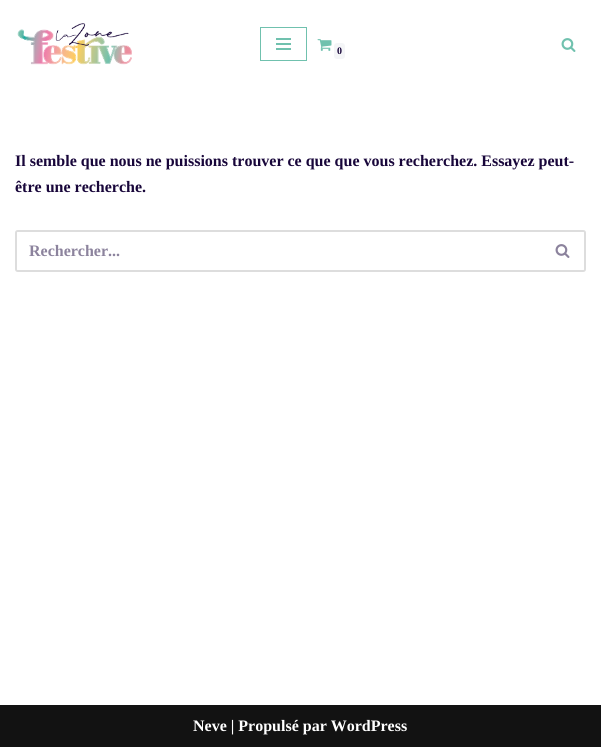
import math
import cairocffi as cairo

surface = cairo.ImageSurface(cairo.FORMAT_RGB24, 601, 747)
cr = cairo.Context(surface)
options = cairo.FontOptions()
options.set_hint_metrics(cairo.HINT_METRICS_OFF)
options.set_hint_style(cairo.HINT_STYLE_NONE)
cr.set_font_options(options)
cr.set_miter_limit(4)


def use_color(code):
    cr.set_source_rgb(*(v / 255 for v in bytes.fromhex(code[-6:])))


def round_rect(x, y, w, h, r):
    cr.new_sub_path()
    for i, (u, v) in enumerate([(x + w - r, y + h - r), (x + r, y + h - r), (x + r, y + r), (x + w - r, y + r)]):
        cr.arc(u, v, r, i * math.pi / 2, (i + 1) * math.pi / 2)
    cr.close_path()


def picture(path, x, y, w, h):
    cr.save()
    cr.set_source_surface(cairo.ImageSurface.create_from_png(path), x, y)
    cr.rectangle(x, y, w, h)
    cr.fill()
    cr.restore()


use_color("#ffffff")
cr.paint()
picture("img1.png", 17, 23, 115, 42)
cr.rectangle(260.5, 27.5, 46, 33)
use_color("#70c1ae")
cr.set_line_width(1)
cr.stroke()
cr.rectangle(276, 38, 15, 2)
cr.fill()
cr.rectangle(276, 43, 15, 2)
cr.fill()
cr.rectangle(276, 48, 15, 2)
cr.fill()
picture("img2.png", 317, 39, 15, 12)
use_color("#f4f5f7")
round_rect(334, 43, 11, 16, 3)
cr.fill()
cr.select_font_face("Liberation Serif", cairo.FONT_SLANT_NORMAL, cairo.FONT_WEIGHT_BOLD)
cr.set_font_size(10)
use_color("#18063a")
cr.move_to(337, 54)
cr.show_text("0")
picture("img3.png", 561, 38, 15, 14)
cr.set_font_size(16)
cr.move_to(15, 166)
cr.show_text("Il semble que nous ne puissions trouver ce que que vous recherchez. Essayez peut-")
cr.move_to(15, 192)
cr.show_text("être une recherche.")
use_color("#dddddd")
cr.set_fill_rule(cairo.FILL_RULE_EVEN_ODD)
cr.new_path()
cr.move_to(18, 230)
cr.line_to(541, 230)
cr.line_to(541, 272)
cr.line_to(18, 272)
cr.curve_to(16, 272, 15, 271, 15, 269)
cr.line_to(15, 233)
cr.curve_to(15, 231, 16, 230, 18, 230)
cr.close_path()
cr.move_to(18, 232)
cr.line_to(541, 232)
cr.line_to(541, 270)
cr.line_to(18, 270)
cr.curve_to(17, 270, 17, 270, 17, 269)
cr.line_to(17, 233)
cr.curve_to(17, 232, 17, 232, 18, 232)
cr.close_path()
cr.fill()
use_color("#8c839d")
cr.move_to(29, 256)
cr.show_text("Rechercher...")
use_color("#dddddd")
cr.new_path()
cr.move_to(541, 230)
cr.line_to(583, 230)
cr.curve_to(585, 230, 586, 231, 586, 233)
cr.line_to(586, 269)
cr.curve_to(586, 271, 585, 272, 583, 272)
cr.line_to(541, 272)
cr.close_path()
cr.move_to(541, 232)
cr.line_to(583, 232)
cr.curve_to(584, 232, 584, 232, 584, 233)
cr.line_to(584, 269)
cr.curve_to(584, 270, 584, 270, 583, 270)
cr.line_to(541, 270)
cr.close_path()
cr.fill()
picture("img4.png", 555, 244, 15, 14)
use_color("#121212")
cr.rectangle(0, 705, 601, 42)
cr.fill()
use_color("#ffffff")
cr.move_to(193, 731)
cr.show_text("Neve | Propulsé par WordPress")
surface.write_to_png("result.png")
